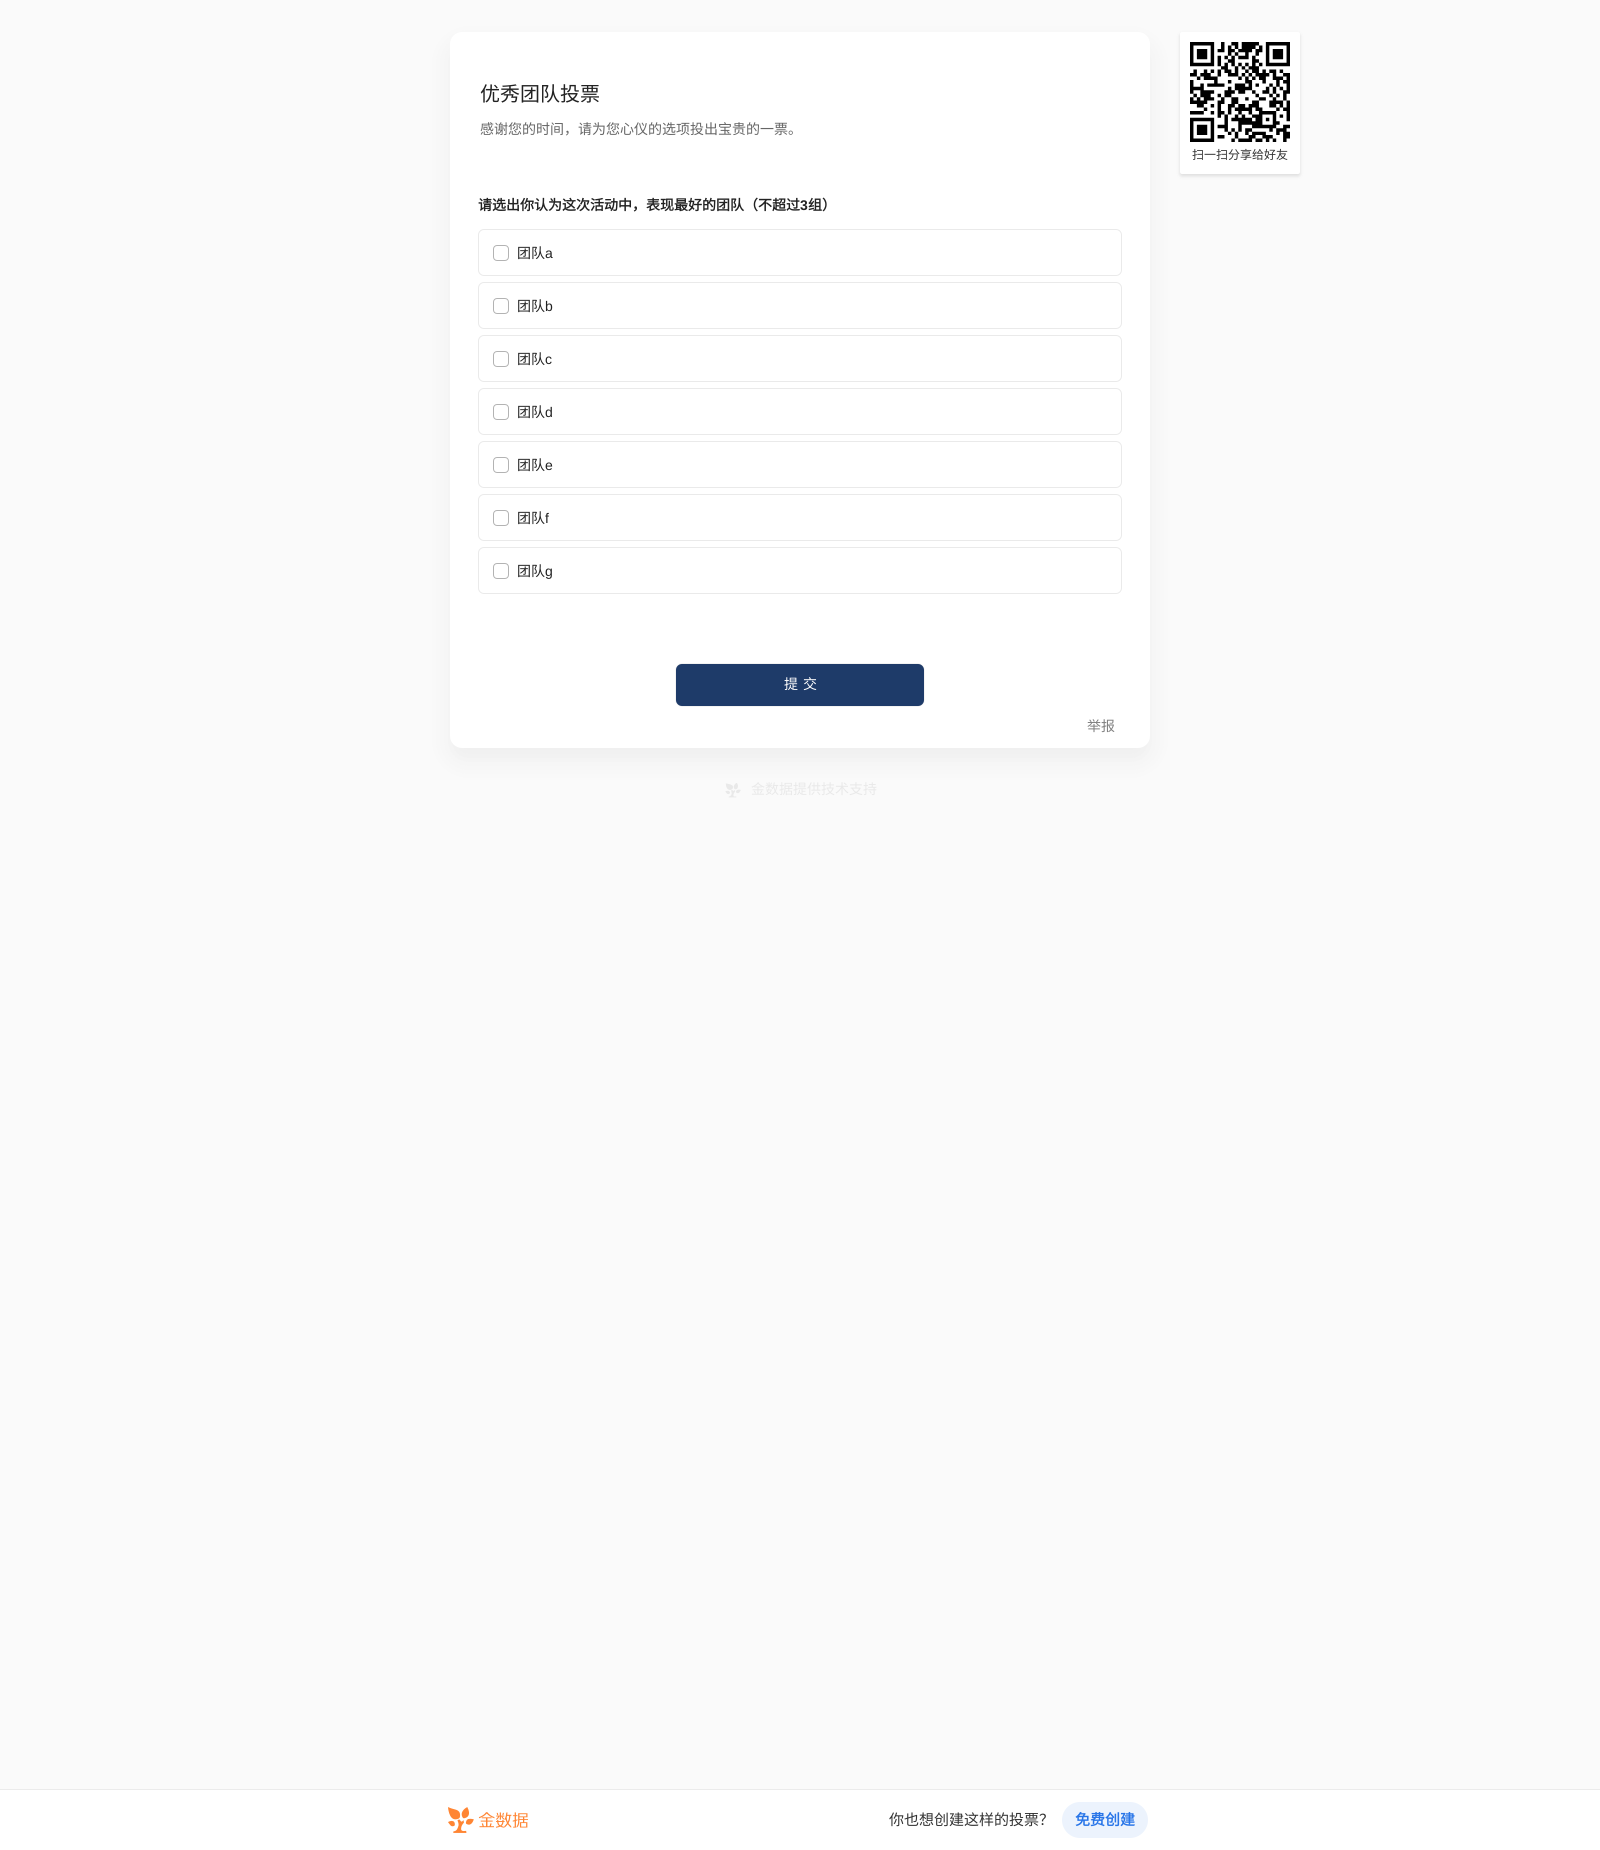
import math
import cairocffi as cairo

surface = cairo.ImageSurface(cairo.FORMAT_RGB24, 1600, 1850)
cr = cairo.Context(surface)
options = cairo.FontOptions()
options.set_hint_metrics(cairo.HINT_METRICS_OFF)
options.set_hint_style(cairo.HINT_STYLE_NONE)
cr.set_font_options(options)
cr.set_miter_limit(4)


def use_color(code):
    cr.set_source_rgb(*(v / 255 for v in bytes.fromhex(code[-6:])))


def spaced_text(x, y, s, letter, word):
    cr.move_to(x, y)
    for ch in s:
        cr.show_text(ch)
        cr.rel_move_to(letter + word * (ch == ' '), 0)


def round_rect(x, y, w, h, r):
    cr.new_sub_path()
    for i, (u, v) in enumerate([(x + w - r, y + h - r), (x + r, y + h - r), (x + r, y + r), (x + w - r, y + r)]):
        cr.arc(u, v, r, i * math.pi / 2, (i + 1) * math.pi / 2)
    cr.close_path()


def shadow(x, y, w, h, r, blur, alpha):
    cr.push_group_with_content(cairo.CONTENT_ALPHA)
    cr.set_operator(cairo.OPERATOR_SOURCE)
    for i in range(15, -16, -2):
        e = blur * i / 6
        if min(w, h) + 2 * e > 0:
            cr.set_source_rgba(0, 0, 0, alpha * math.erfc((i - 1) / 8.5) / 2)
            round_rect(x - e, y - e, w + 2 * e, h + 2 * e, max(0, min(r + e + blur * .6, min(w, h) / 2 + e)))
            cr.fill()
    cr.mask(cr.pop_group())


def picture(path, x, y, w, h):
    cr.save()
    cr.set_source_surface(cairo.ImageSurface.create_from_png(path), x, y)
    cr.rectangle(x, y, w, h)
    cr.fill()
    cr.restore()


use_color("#fafafa")
cr.paint()
use_color("#000000")
shadow(450, 44, 700, 716, 12, 12, 0.05)
use_color("#ffffff")
round_rect(450, 32, 700, 716, 12)
cr.fill()
cr.select_font_face("Noto Sans CJK SC")
cr.set_font_size(20)
use_color("#222222")
cr.move_to(480, 101)
cr.show_text("优秀团队投票")
cr.set_font_size(14)
use_color("#666666")
cr.move_to(480, 134)
cr.show_text("感谢您的时间，请为您心仪的选项投出宝贵的一票。")
use_color("#000000")
shadow(1180, 34, 120, 142, 2, 2, 0.12)
use_color("#ffffff")
round_rect(1180, 32, 120, 142, 2)
cr.fill()
picture("img1.png", 1190, 42, 100, 100)
cr.set_font_size(12)
use_color("#333333")
cr.move_to(1192, 159)
cr.show_text("扫一扫分享给好友")
cr.select_font_face("Noto Sans CJK SC", cairo.FONT_SLANT_NORMAL, cairo.FONT_WEIGHT_BOLD)
cr.set_font_size(14)
use_color("#222222")
cr.move_to(478, 210)
cr.show_text("请选出你认为这次活动中，表现最好的团队（不超过")
cr.select_font_face("Liberation Sans", cairo.FONT_SLANT_NORMAL, cairo.FONT_WEIGHT_BOLD)
cr.move_to(800, 210)
cr.show_text("3")
cr.select_font_face("Noto Sans CJK SC", cairo.FONT_SLANT_NORMAL, cairo.FONT_WEIGHT_BOLD)
cr.move_to(808, 210)
cr.show_text("组）")
round_rect(478.5, 229.5, 643, 46, 5.5)
use_color("#eaeaea")
cr.set_line_width(1)
cr.stroke()
round_rect(493.5, 245.5, 15, 15, 3.5)
use_color("#b3b3b3")
cr.stroke()
cr.select_font_face("Noto Sans CJK SC")
use_color("#222222")
cr.move_to(517, 258)
cr.show_text("团队")
cr.select_font_face("Liberation Sans")
cr.move_to(545, 258)
cr.show_text("a")
round_rect(478.5, 282.5, 643, 46, 5.5)
use_color("#eaeaea")
cr.stroke()
round_rect(493.5, 298.5, 15, 15, 3.5)
use_color("#b3b3b3")
cr.stroke()
cr.select_font_face("Noto Sans CJK SC")
use_color("#222222")
cr.move_to(517, 311)
cr.show_text("团队")
cr.select_font_face("Liberation Sans")
cr.move_to(545, 311)
cr.show_text("b")
round_rect(478.5, 335.5, 643, 46, 5.5)
use_color("#eaeaea")
cr.stroke()
round_rect(493.5, 351.5, 15, 15, 3.5)
use_color("#b3b3b3")
cr.stroke()
cr.select_font_face("Noto Sans CJK SC")
use_color("#222222")
cr.move_to(517, 364)
cr.show_text("团队")
cr.select_font_face("Liberation Sans")
cr.move_to(545, 364)
cr.show_text("c")
round_rect(478.5, 388.5, 643, 46, 5.5)
use_color("#eaeaea")
cr.stroke()
round_rect(493.5, 404.5, 15, 15, 3.5)
use_color("#b3b3b3")
cr.stroke()
cr.select_font_face("Noto Sans CJK SC")
use_color("#222222")
cr.move_to(517, 417)
cr.show_text("团队")
cr.select_font_face("Liberation Sans")
cr.move_to(545, 417)
cr.show_text("d")
round_rect(478.5, 441.5, 643, 46, 5.5)
use_color("#eaeaea")
cr.stroke()
round_rect(493.5, 457.5, 15, 15, 3.5)
use_color("#b3b3b3")
cr.stroke()
cr.select_font_face("Noto Sans CJK SC")
use_color("#222222")
cr.move_to(517, 470)
cr.show_text("团队")
cr.select_font_face("Liberation Sans")
cr.move_to(545, 470)
cr.show_text("e")
round_rect(478.5, 494.5, 643, 46, 5.5)
use_color("#eaeaea")
cr.stroke()
round_rect(493.5, 510.5, 15, 15, 3.5)
use_color("#b3b3b3")
cr.stroke()
cr.select_font_face("Noto Sans CJK SC")
use_color("#222222")
cr.move_to(517, 523)
cr.show_text("团队")
cr.select_font_face("Liberation Sans")
cr.move_to(545, 523)
cr.show_text("f")
round_rect(478.5, 547.5, 643, 46, 5.5)
use_color("#eaeaea")
cr.stroke()
round_rect(493.5, 563.5, 15, 15, 3.5)
use_color("#b3b3b3")
cr.stroke()
cr.select_font_face("Noto Sans CJK SC")
use_color("#222222")
cr.move_to(517, 576)
cr.show_text("团队")
cr.select_font_face("Liberation Sans")
cr.move_to(545, 576)
cr.show_text("g")
use_color("#000000")
shadow(676, 664, 248, 42, 6, 0.5, 0.2)
use_color("#1e3b69")
round_rect(676, 664, 248, 42, 6)
cr.fill()
cr.select_font_face("Noto Sans CJK SC")
use_color("#ffffff")
spaced_text(784, 689, "提交", 5, 0)
use_color("#808080")
cr.move_to(1087, 731)
cr.show_text("举报")
picture("img2.png", 725, 783, 16, 15)
use_color("#e9e9e9")
cr.move_to(751, 794)
cr.show_text("金数据提供技术支持")
use_color("#ffffff")
cr.rectangle(0, 1790, 1600, 60)
cr.fill()
use_color("#ebebeb")
cr.rectangle(0, 1789, 1600, 1)
cr.fill()
picture("img3.png", 448, 1807, 80, 26)
cr.set_font_size(15)
use_color("#333333")
cr.move_to(889, 1825)
cr.show_text("你也想创建这样的投票？")
use_color("#ecf3fd")
round_rect(1062, 1802, 86, 36, 18)
cr.fill()
cr.select_font_face("Noto Sans CJK SC", cairo.FONT_SLANT_NORMAL, cairo.FONT_WEIGHT_BOLD)
use_color("#2875e8")
cr.move_to(1075, 1825)
cr.show_text("免费创建")
surface.write_to_png("result.png")
